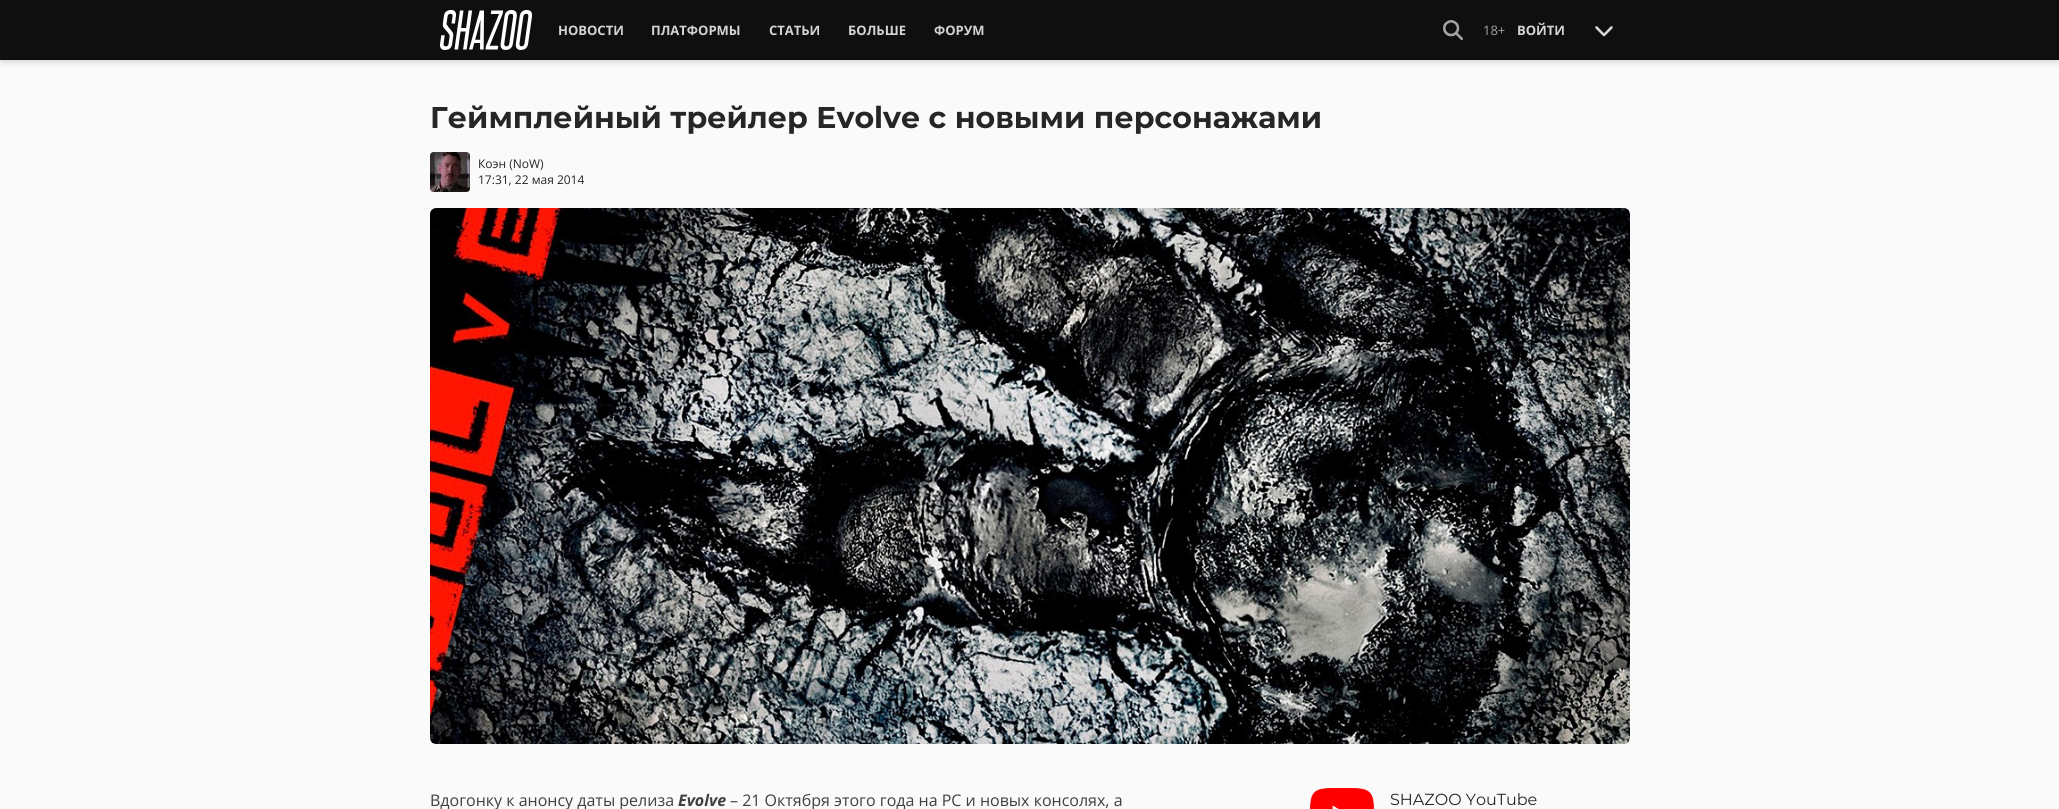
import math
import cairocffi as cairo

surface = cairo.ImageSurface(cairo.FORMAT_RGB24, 2059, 809)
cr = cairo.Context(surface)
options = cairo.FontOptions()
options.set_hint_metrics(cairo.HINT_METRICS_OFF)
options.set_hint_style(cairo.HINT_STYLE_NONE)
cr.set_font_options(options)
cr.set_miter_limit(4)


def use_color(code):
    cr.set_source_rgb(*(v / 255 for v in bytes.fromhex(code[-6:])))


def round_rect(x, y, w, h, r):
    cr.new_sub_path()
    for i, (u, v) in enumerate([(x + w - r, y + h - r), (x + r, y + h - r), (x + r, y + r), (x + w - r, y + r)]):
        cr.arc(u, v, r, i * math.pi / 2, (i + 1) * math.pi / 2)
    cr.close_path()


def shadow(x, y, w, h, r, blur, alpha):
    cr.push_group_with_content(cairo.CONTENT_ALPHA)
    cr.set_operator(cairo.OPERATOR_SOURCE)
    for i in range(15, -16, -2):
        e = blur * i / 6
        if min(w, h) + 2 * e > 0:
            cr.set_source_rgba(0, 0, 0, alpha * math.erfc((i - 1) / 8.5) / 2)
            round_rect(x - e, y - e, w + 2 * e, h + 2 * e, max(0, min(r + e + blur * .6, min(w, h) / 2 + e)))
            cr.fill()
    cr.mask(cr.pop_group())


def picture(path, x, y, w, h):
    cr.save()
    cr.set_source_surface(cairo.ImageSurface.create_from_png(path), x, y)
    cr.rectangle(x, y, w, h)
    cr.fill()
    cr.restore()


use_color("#fafafa")
cr.paint()
use_color("#000000")
shadow(2, 4, 2055, 56, 0, 2, 0.1)
shadow(1, 5, 2057, 58, 0, 3, 0.1)
use_color("#0f0f0f")
cr.rectangle(0, 0, 2059, 60)
cr.fill()
picture("img1.png", 440, 10, 92, 40)
cr.select_font_face("Open Sans", cairo.FONT_SLANT_NORMAL, cairo.FONT_WEIGHT_BOLD)
cr.set_font_size(13)
use_color("#d4d4d4")
cr.move_to(558, 35)
cr.show_text("НОВОСТИ")
cr.move_to(651, 35)
cr.show_text("ПЛАТФОРМЫ")
cr.move_to(769, 35)
cr.show_text("СТАТЬИ")
cr.move_to(848, 35)
cr.show_text("БОЛЬШЕ")
cr.move_to(934, 35)
cr.show_text("ФОРУМ")
picture("img2.png", 1443, 20, 20, 20)
cr.select_font_face("Open Sans")
use_color("#a3a3a3")
cr.move_to(1483, 35)
cr.show_text("18+")
cr.select_font_face("Open Sans", cairo.FONT_SLANT_NORMAL, cairo.FONT_WEIGHT_BOLD)
use_color("#d4d4d4")
cr.move_to(1517, 35)
cr.show_text("ВОЙТИ")
picture("img3.png", 1595, 26, 18, 11)
cr.select_font_face("Montserrat", cairo.FONT_SLANT_NORMAL, cairo.FONT_WEIGHT_BOLD)
cr.set_font_size(30)
use_color("#262626")
cr.move_to(430, 128)
cr.show_text("Геймплейный трейлер Evolve с новыми персонажами")
picture("img4.png", 430, 152, 40, 40)
cr.select_font_face("Open Sans")
cr.set_font_size(12)
cr.move_to(478, 168)
cr.show_text("Коэн (NoW)")
cr.move_to(478, 184)
cr.show_text("17:31, 22 мая 2014")
picture("img5.png", 430, 208, 1200, 536)
cr.set_font_size(16)
use_color("#404040")
cr.move_to(430, 806)
cr.show_text("Вдогонку к анонсу даты релиза")
cr.select_font_face("Open Sans", cairo.FONT_SLANT_ITALIC, cairo.FONT_WEIGHT_BOLD)
cr.move_to(678, 806)
cr.show_text("Evolve")
cr.select_font_face("Open Sans")
cr.move_to(730, 806)
cr.show_text("– 21 Октября этого года на PC и новых консолях, а")
picture("img6.png", 1310, 788, 64, 21)
cr.select_font_face("Montserrat")
use_color("#262626")
cr.move_to(1390, 805)
cr.show_text("SHAZOO YouTube")
surface.write_to_png("result.png")
